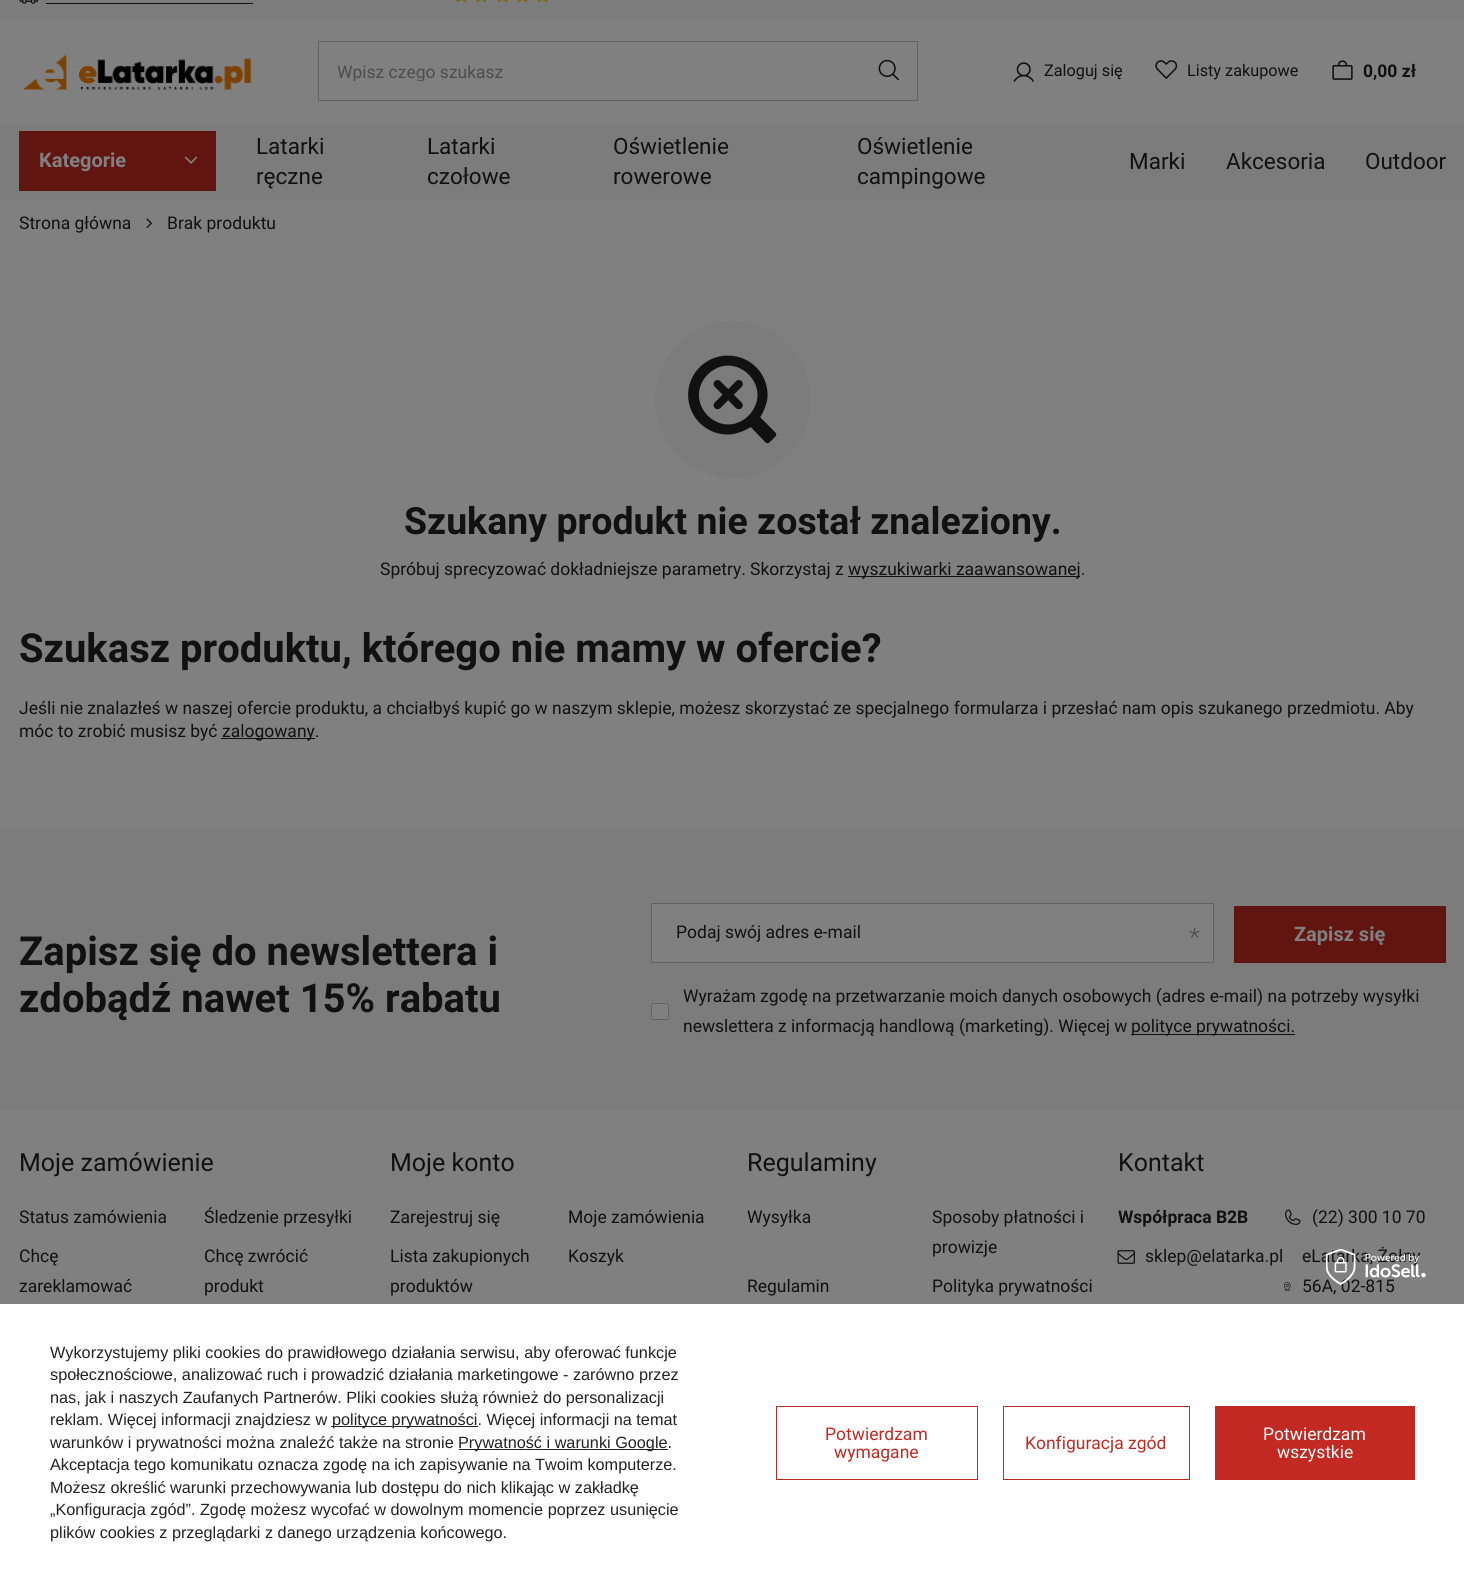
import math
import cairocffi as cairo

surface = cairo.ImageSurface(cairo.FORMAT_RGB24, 1464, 1581)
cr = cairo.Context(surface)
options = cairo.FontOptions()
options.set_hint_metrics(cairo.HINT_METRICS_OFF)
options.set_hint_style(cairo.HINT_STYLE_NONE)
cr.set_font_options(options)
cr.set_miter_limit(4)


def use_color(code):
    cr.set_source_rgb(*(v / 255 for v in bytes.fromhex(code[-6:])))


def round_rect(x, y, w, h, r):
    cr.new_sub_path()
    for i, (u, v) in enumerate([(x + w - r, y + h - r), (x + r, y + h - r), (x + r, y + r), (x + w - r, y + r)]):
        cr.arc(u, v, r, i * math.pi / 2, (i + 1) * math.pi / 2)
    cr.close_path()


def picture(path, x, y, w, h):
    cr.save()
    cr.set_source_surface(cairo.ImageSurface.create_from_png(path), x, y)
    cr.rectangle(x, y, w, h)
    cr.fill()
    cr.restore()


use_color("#808080")
cr.paint()
use_color("#7c7c7c")
cr.rectangle(0, 0, 1464, 20)
cr.fill()
picture("img1.png", 19, 0, 20, 4)
use_color("#111111")
cr.rectangle(46, 3, 207, 1)
cr.fill()
picture("img2.png", 456, 0, 11, 3)
picture("img2.png", 476, 0, 11, 3)
picture("img3.png", 497, 0, 11, 3)
picture("img3.png", 517, 0, 11, 3)
picture("img3.png", 537, 0, 11, 3)
picture("img4.png", 22, 54, 230, 36)
cr.rectangle(318.5, 41.5, 599, 59)
use_color("#626464")
cr.set_line_width(1)
cr.stroke()
cr.save()
cr.rectangle(338, 61, 485, 20)
cr.clip()
cr.select_font_face("Roboto")
cr.set_font_size(17.5)
use_color("#4d4d4d")
cr.move_to(337, 78)
cr.show_text("Wpisz czego szukasz")
cr.restore()
picture("img5.png", 878, 59, 21, 22)
picture("img6.png", 1013, 62, 21, 20)
cr.select_font_face("Roboto")
cr.set_font_size(16.25)
use_color("#111111")
cr.move_to(1044, 76)
cr.show_text("Zaloguj się")
picture("img7.png", 1155, 60, 23, 19)
cr.move_to(1187, 76)
cr.show_text("Listy zakupowe")
picture("img8.png", 1332, 60, 21, 20)
cr.select_font_face("Roboto", cairo.FONT_SLANT_NORMAL, cairo.FONT_WEIGHT_BOLD)
cr.set_font_size(17.5)
cr.move_to(1363, 77)
cr.show_text("0,00 zł")
use_color("#7c7c7c")
cr.rectangle(0, 124, 1464, 75)
cr.fill()
use_color("#611511")
cr.rectangle(19, 131, 197, 60)
cr.fill()
cr.set_font_size(20)
use_color("#808080")
cr.move_to(39, 167)
cr.show_text("Kategorie")
picture("img9.png", 184, 156, 14, 8)
cr.select_font_face("Roboto")
cr.set_font_size(22.5)
use_color("#111111")
cr.move_to(256, 154)
cr.show_text("Latarki")
cr.move_to(256, 184)
cr.show_text("ręczne")
cr.move_to(427, 154)
cr.show_text("Latarki")
cr.move_to(427, 184)
cr.show_text("czołowe")
cr.move_to(613, 154)
cr.show_text("Oświetlenie")
cr.move_to(613, 184)
cr.show_text("rowerowe")
cr.move_to(857, 154)
cr.show_text("Oświetlenie")
cr.move_to(857, 184)
cr.show_text("campingowe")
cr.move_to(1129, 169)
cr.show_text("Marki")
cr.move_to(1226, 169)
cr.show_text("Akcesoria")
cr.move_to(1365, 169)
cr.show_text("Outdoor")
cr.set_font_size(17.5)
cr.move_to(19, 229)
cr.show_text("Strona główna")
picture("img10.png", 146, 218, 6, 11)
cr.move_to(167, 229)
cr.show_text("Brak produktu")
use_color("#7c7c7c")
round_rect(655, 321, 156, 157, 78)
cr.fill()
picture("img11.png", 688, 355, 89, 89)
cr.select_font_face("Roboto", cairo.FONT_SLANT_NORMAL, cairo.FONT_WEIGHT_BOLD)
cr.set_font_size(37.5)
use_color("#111111")
cr.move_to(404, 534)
cr.show_text("Szukany produkt nie został znaleziony.")
cr.select_font_face("Roboto")
cr.set_font_size(17.5)
cr.move_to(380, 575)
cr.show_text("Spróbuj sprecyzować dokładniejsze parametry. Skorzystaj z")
cr.rectangle(848, 576, 232, 1)
cr.fill()
cr.move_to(848, 575)
cr.show_text("wyszukiwarki zaawansowanej.")
cr.select_font_face("Roboto", cairo.FONT_SLANT_NORMAL, cairo.FONT_WEIGHT_BOLD)
cr.set_font_size(40)
cr.move_to(19, 662)
cr.show_text("Szukasz produktu, którego nie mamy w ofercie?")
cr.select_font_face("Roboto")
cr.set_font_size(17.5)
cr.move_to(19, 714)
cr.show_text("Jeśli nie znalazłeś w naszej ofercie produktu, a chciałbyś kupić go w naszym sklepie, możesz skorzystać ze specjalnego formularza i przesłać nam opis szukanego przedmiotu. Aby")
cr.move_to(19, 737)
cr.show_text("móc to zrobić musisz być")
cr.rectangle(221, 738, 94, 1)
cr.fill()
cr.move_to(222, 737)
cr.show_text("zalogowany.")
use_color("#7c7c7c")
cr.rectangle(0, 828, 1464, 282)
cr.fill()
cr.select_font_face("Roboto", cairo.FONT_SLANT_NORMAL, cairo.FONT_WEIGHT_BOLD)
cr.set_font_size(40)
use_color("#111111")
cr.move_to(19, 965)
cr.show_text("Zapisz się do newslettera i")
cr.move_to(19, 1012)
cr.show_text("zdobądź nawet 15% rabatu")
use_color("#808080")
cr.rectangle(651.5, 903.5, 562, 59)
cr.fill_preserve()
use_color("#626464")
cr.stroke()
cr.select_font_face("Roboto")
cr.set_font_size(17.5)
use_color("#111111")
cr.move_to(676, 938)
cr.show_text("Podaj swój adres e-mail")
cr.select_font_face("Roboto Light")
cr.set_font_size(26)
use_color("#4d4d4d")
cr.move_to(1189, 946)
cr.show_text("*")
use_color("#611511")
cr.rectangle(1234, 906, 212, 57)
cr.fill()
cr.select_font_face("Roboto", cairo.FONT_SLANT_NORMAL, cairo.FONT_WEIGHT_BOLD)
cr.set_font_size(20)
use_color("#808080")
cr.move_to(1294, 941)
cr.show_text("Zapisz się")
cr.select_font_face("Roboto")
cr.set_font_size(17.5)
use_color("#111111")
cr.move_to(683, 1002)
cr.show_text("Wyrażam zgodę na przetwarzanie moich danych osobowych (adres e-mail) na potrzeby wysyłki")
use_color("#808080")
round_rect(651.5, 1003.5, 17, 16, 2)
cr.fill_preserve()
use_color("#626464")
cr.stroke()
use_color("#111111")
cr.move_to(683, 1032)
cr.show_text("newslettera z informacją handlową (marketing). Więcej w")
cr.rectangle(1131, 1034, 164, 1)
cr.fill()
cr.move_to(1131, 1032)
cr.show_text("polityce prywatności.")
cr.set_font_size(25)
cr.move_to(19, 1171)
cr.show_text("Moje zamówienie")
cr.set_font_size(17.5)
cr.move_to(19, 1223)
cr.show_text("Status zamówienia")
cr.move_to(204, 1223)
cr.show_text("Śledzenie przesyłki")
cr.move_to(19, 1262)
cr.show_text("Chcę")
cr.move_to(19, 1292)
cr.show_text("zareklamować")
cr.move_to(204, 1262)
cr.show_text("Chcę zwrócić")
cr.move_to(204, 1292)
cr.show_text("produkt")
cr.set_font_size(25)
cr.move_to(390, 1171)
cr.show_text("Moje konto")
cr.set_font_size(17.5)
cr.move_to(390, 1223)
cr.show_text("Zarejestruj się")
cr.move_to(568, 1223)
cr.show_text("Moje zamówienia")
cr.move_to(390, 1262)
cr.show_text("Lista zakupionych")
cr.move_to(390, 1292)
cr.show_text("produktów")
cr.move_to(568, 1262)
cr.show_text("Koszyk")
cr.set_font_size(25)
cr.move_to(747, 1171)
cr.show_text("Regulaminy")
cr.set_font_size(17.5)
cr.move_to(747, 1223)
cr.show_text("Wysyłka")
cr.move_to(932, 1223)
cr.show_text("Sposoby płatności i")
cr.move_to(932, 1253)
cr.show_text("prowizje")
cr.move_to(747, 1292)
cr.show_text("Regulamin")
cr.move_to(932, 1292)
cr.show_text("Polityka prywatności")
cr.set_font_size(25)
cr.move_to(1118, 1171)
cr.show_text("Kontakt")
cr.select_font_face("Roboto", cairo.FONT_SLANT_NORMAL, cairo.FONT_WEIGHT_BOLD)
cr.set_font_size(17.5)
cr.move_to(1118, 1223)
cr.show_text("Współpraca B2B")
picture("img12.png", 1285, 1209, 16, 16)
cr.select_font_face("Roboto")
cr.move_to(1312, 1223)
cr.show_text("(22) 300 10 70")
picture("img13.png", 1117, 1250, 18, 14)
cr.move_to(1145, 1262)
cr.show_text("sklep@elatarka.pl")
picture("img14.png", 1284, 1282, 7, 9)
cr.move_to(1302, 1262)
cr.show_text("eLatarka, Żołny")
cr.move_to(1302, 1292)
cr.show_text("56A, 02-815")
use_color("#ffffff")
cr.rectangle(0, 1304, 1464, 277)
cr.fill()
picture("img15.png", 1326, 1249, 100, 36)
cr.select_font_face("Liberation Sans")
cr.set_font_size(16.25)
use_color("#222222")
cr.move_to(50, 1358)
cr.show_text("Wykorzystujemy pliki cookies do prawidłowego działania serwisu, aby oferować funkcje")
cr.move_to(50, 1380)
cr.show_text("społecznościowe, analizować ruch i prowadzić działania marketingowe - zarówno przez")
cr.move_to(50, 1403)
cr.show_text("nas, jak i naszych Zaufanych Partnerów. Pliki cookies służą również do personalizacji")
cr.move_to(50, 1425)
cr.show_text("reklam. Więcej informacji znajdziesz w")
cr.rectangle(331, 1426, 147, 1)
cr.fill()
cr.move_to(332, 1425)
cr.show_text("polityce prywatności. Więcej informacji na temat")
cr.move_to(50, 1448)
cr.show_text("warunków i prywatności można znaleźć także na stronie")
cr.rectangle(459, 1449, 209, 1)
cr.fill()
cr.move_to(458, 1448)
cr.show_text("Prywatność i warunki Google.")
cr.move_to(50, 1470)
cr.show_text("Akceptacja tego komunikatu oznacza zgodę na ich zapisywanie na Twoim komputerze.")
cr.move_to(50, 1493)
cr.show_text("Możesz określić warunki przechowywania lub dostępu do nich klikając w zakładkę")
cr.move_to(50, 1515)
cr.show_text("„Konfiguracja zgód”. Zgodę możesz wycofać w dowolnym momencie poprzez usunięcie")
cr.move_to(50, 1538)
cr.show_text("plików cookies z przeglądarki z danego urządzenia końcowego.")
cr.rectangle(776.5, 1406.5, 201, 73)
use_color("#c22922")
cr.stroke()
cr.select_font_face("Roboto")
cr.set_font_size(17.5)
cr.move_to(825, 1440)
cr.show_text("Potwierdzam")
cr.move_to(834, 1458)
cr.show_text("wymagane")
cr.rectangle(1003.5, 1406.5, 186, 73)
cr.stroke()
cr.move_to(1025, 1449)
cr.show_text("Konfiguracja zgód")
cr.rectangle(1215, 1406, 200, 74)
cr.fill()
use_color("#ffffff")
cr.move_to(1263, 1440)
cr.show_text("Potwierdzam")
cr.move_to(1277, 1458)
cr.show_text("wszystkie")
surface.write_to_png("result.png")
